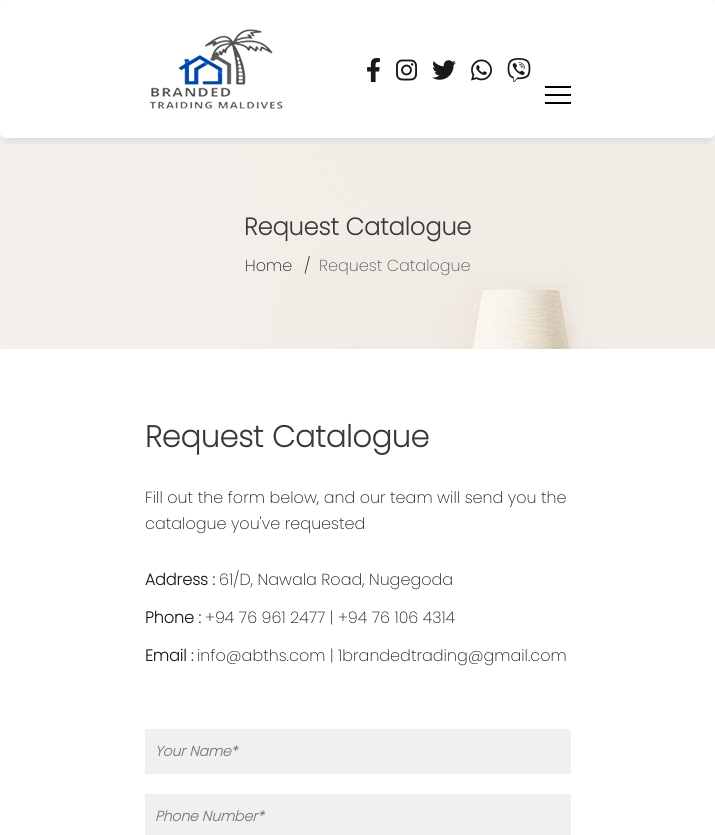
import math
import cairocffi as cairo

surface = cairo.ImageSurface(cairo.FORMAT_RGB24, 715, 835)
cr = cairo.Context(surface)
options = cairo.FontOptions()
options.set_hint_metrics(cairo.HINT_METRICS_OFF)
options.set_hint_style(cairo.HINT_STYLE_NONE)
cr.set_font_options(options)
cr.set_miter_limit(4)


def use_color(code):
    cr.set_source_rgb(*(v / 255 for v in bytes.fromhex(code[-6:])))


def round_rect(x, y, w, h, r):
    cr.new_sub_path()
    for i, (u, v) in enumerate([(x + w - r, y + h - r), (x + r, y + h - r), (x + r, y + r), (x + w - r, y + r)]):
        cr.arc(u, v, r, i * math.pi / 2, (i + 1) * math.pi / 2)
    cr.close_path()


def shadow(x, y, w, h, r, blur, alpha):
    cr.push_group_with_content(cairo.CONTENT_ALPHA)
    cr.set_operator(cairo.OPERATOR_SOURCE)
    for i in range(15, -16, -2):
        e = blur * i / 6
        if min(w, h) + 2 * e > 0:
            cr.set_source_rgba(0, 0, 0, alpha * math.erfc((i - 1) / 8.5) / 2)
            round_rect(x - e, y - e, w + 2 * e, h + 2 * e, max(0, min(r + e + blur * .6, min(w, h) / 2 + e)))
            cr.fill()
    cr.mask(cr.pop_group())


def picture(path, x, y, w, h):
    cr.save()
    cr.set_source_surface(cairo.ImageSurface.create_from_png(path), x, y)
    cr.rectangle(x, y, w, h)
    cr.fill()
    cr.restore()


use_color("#ffffff")
cr.paint()
use_color("#000000")
shadow(0, 8, 715, 138, 6, 8, 0.15)
use_color("#ffffff")
round_rect(0, 0, 715, 138, 6)
cr.fill()
picture("img1.png", 149, 29, 134, 80)
picture("img2.png", 367, 58, 13, 24)
picture("img3.png", 396, 59, 21, 22)
picture("img4.png", 432, 60, 24, 20)
picture("img5.png", 471, 59, 21, 22)
picture("img6.png", 507, 58, 24, 24)
use_color("#000000")
cr.rectangle(545, 94, 26, 2)
cr.fill()
cr.rectangle(545, 86, 26, 2)
cr.fill()
cr.rectangle(545, 102, 26, 2)
cr.fill()
picture("img7.png", 0, 144, 715, 205)
cr.select_font_face("Poppins", cairo.FONT_SLANT_NORMAL, cairo.FONT_WEIGHT_BOLD)
cr.set_font_size(24)
use_color("#383838")
cr.move_to(244, 235)
cr.show_text("Request Catalogue")
cr.select_font_face("Poppins ExtraLight")
cr.set_font_size(16)
use_color("#191919")
cr.move_to(245, 271)
cr.show_text("Home")
use_color("#000000")
cr.move_to(304, 271)
cr.show_text("/")
use_color("#555554")
cr.move_to(319, 271)
cr.show_text("Request Catalogue")
cr.select_font_face("Poppins", cairo.FONT_SLANT_NORMAL, cairo.FONT_WEIGHT_BOLD)
cr.set_font_size(30)
use_color("#383838")
cr.move_to(145, 447)
cr.show_text("Request Catalogue")
cr.select_font_face("Poppins ExtraLight")
cr.set_font_size(16)
use_color("#191919")
cr.move_to(145, 503)
cr.show_text("Fill out the form below, and our team will send you the")
cr.move_to(145, 529)
cr.show_text("catalogue you've requested")
cr.select_font_face("Poppins", cairo.FONT_SLANT_NORMAL, cairo.FONT_WEIGHT_BOLD)
cr.move_to(145, 585)
cr.show_text("Address :")
cr.select_font_face("Poppins ExtraLight")
cr.move_to(219, 585)
cr.show_text("61/D, Nawala Road, Nugegoda")
cr.select_font_face("Poppins", cairo.FONT_SLANT_NORMAL, cairo.FONT_WEIGHT_BOLD)
cr.move_to(145, 623)
cr.show_text("Phone :")
cr.select_font_face("Poppins ExtraLight")
cr.move_to(205, 623)
cr.show_text("+94 76 961 2477 | +94 76 106 4314")
cr.select_font_face("Poppins", cairo.FONT_SLANT_NORMAL, cairo.FONT_WEIGHT_BOLD)
cr.move_to(145, 661)
cr.show_text("Email :")
cr.select_font_face("Poppins ExtraLight")
cr.move_to(197, 661)
cr.show_text("info@abths.com | 1brandedtrading@gmail.com")
use_color("#f0f0f0")
cr.rectangle(145, 729, 426, 45)
cr.fill()
cr.select_font_face("Poppins", cairo.FONT_SLANT_ITALIC, cairo.FONT_WEIGHT_BOLD)
cr.set_font_size(14)
use_color("#757575")
cr.move_to(155, 756)
cr.show_text("Your Name*")
use_color("#f0f0f0")
cr.rectangle(145, 794, 426, 41)
cr.fill()
use_color("#757575")
cr.move_to(155, 821)
cr.show_text("Phone Number*")
surface.write_to_png("result.png")
